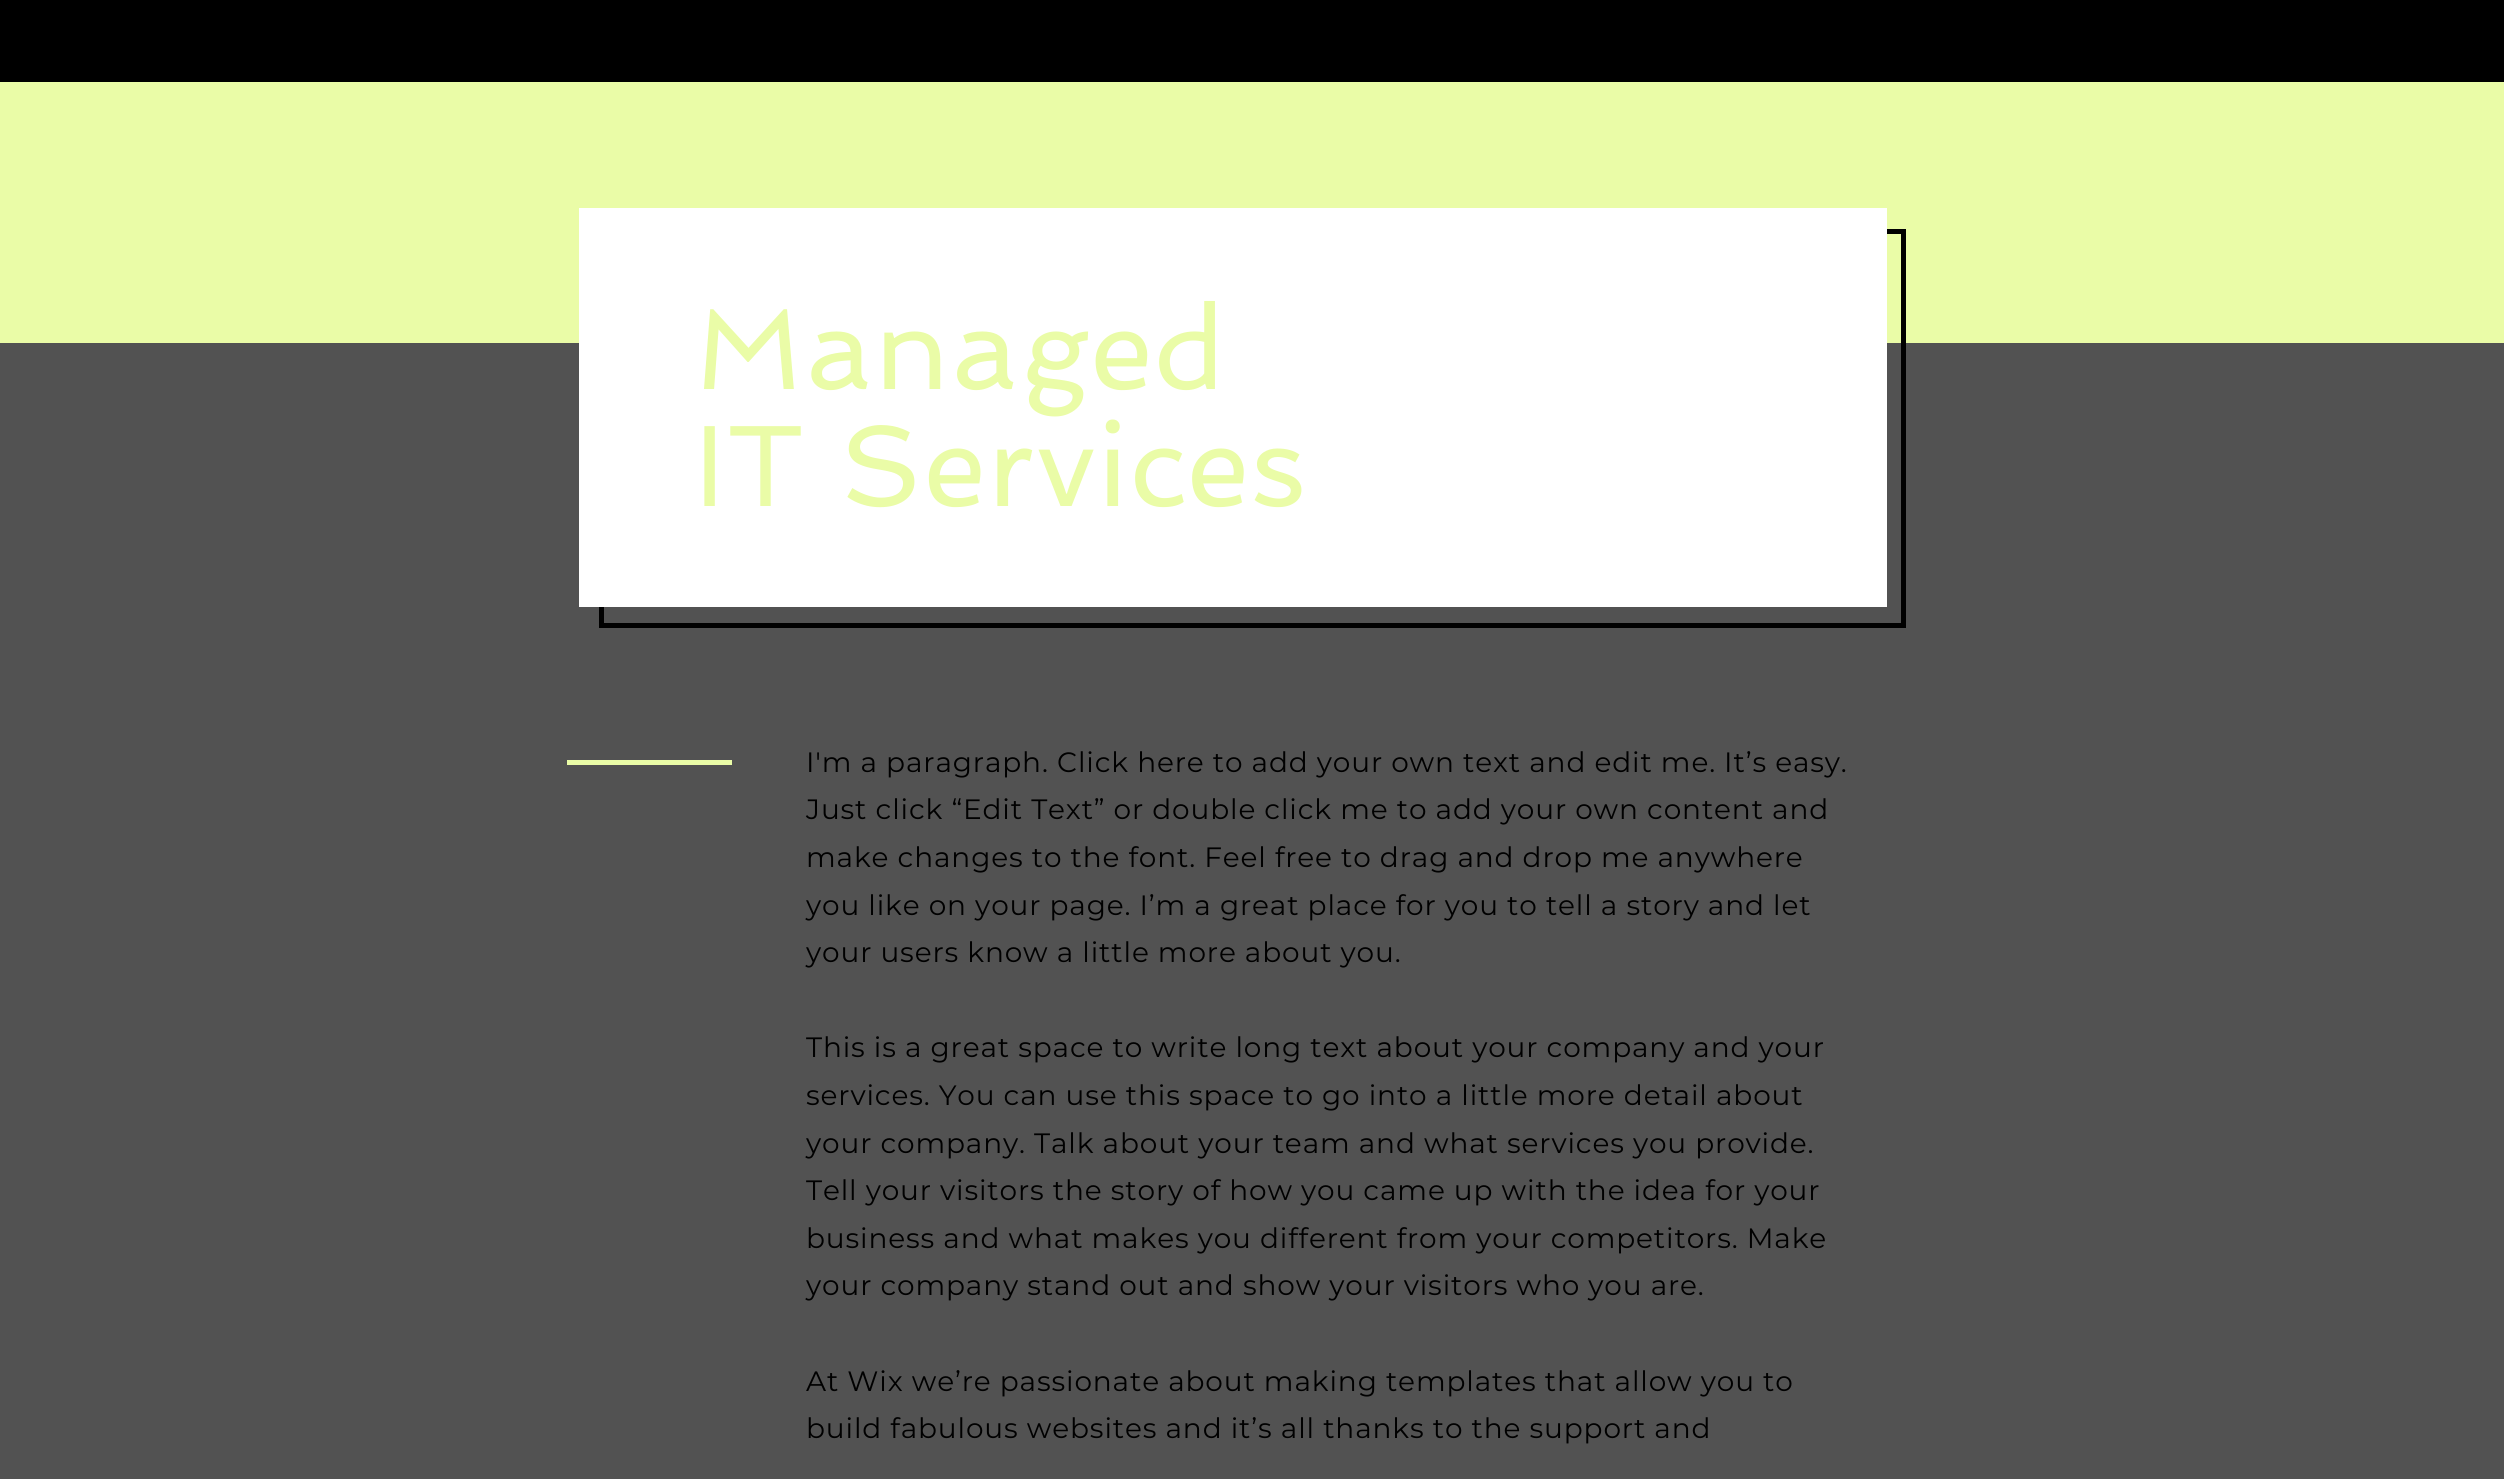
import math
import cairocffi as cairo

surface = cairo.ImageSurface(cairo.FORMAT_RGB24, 2504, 1479)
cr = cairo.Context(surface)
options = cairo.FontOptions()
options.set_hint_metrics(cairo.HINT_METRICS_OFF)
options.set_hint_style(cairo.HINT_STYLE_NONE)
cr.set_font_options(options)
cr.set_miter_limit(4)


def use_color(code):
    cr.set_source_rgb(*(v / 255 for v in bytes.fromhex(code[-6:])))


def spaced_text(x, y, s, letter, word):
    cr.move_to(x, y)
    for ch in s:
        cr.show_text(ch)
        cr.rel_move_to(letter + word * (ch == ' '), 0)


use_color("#000000")
cr.paint()
use_color("#eafca7")
cr.rectangle(0, 82, 2504, 261)
cr.fill()
use_color("#525252")
cr.rectangle(0, 343, 2504, 1136)
cr.fill()
cr.rectangle(601.5, 231.5, 1302, 394)
use_color("#000000")
cr.set_line_width(5)
cr.stroke()
use_color("#ffffff")
cr.rectangle(579, 208, 1308, 399)
cr.fill()
cr.select_font_face("Spinnaker")
cr.set_font_size(115.5)
use_color("#eafca7")
spaced_text(694, 389, "Managed", 1.25, 0)
spaced_text(694, 506, "IT Services", 1.25, 0)
cr.rectangle(567, 760, 165, 5)
cr.fill()
cr.select_font_face("Montserrat")
cr.set_font_size(28)
use_color("#000000")
spaced_text(806, 772, "I'm a paragraph. Click here to add your own text and edit me. It’s easy.", 0.85, 0)
spaced_text(806, 819, "Just click “Edit Text” or double click me to add your own content and", 0.85, 0)
spaced_text(806, 867, "make changes to the font. Feel free to drag and drop me anywhere", 0.85, 0)
spaced_text(806, 915, "you like on your page. I’m a great place for you to tell a story and let", 0.85, 0)
spaced_text(806, 962, "your users know a little more about you.", 0.85, 0)
spaced_text(806, 1057, "This is a great space to write long text about your company and your", 0.85, 0)
spaced_text(806, 1105, "services. You can use this space to go into a little more detail about", 0.85, 0)
spaced_text(806, 1153, "your company. Talk about your team and what services you provide.", 0.85, 0)
spaced_text(806, 1200, "Tell your visitors the story of how you came up with the idea for your", 0.85, 0)
spaced_text(806, 1248, "business and what makes you different from your competitors. Make", 0.85, 0)
spaced_text(806, 1295, "your company stand out and show your visitors who you are.", 0.85, 0)
spaced_text(806, 1391, "At Wix we’re passionate about making templates that allow you to", 0.85, 0)
spaced_text(806, 1438, "build fabulous websites and it’s all thanks to the support and", 0.85, 0)
surface.write_to_png("result.png")
